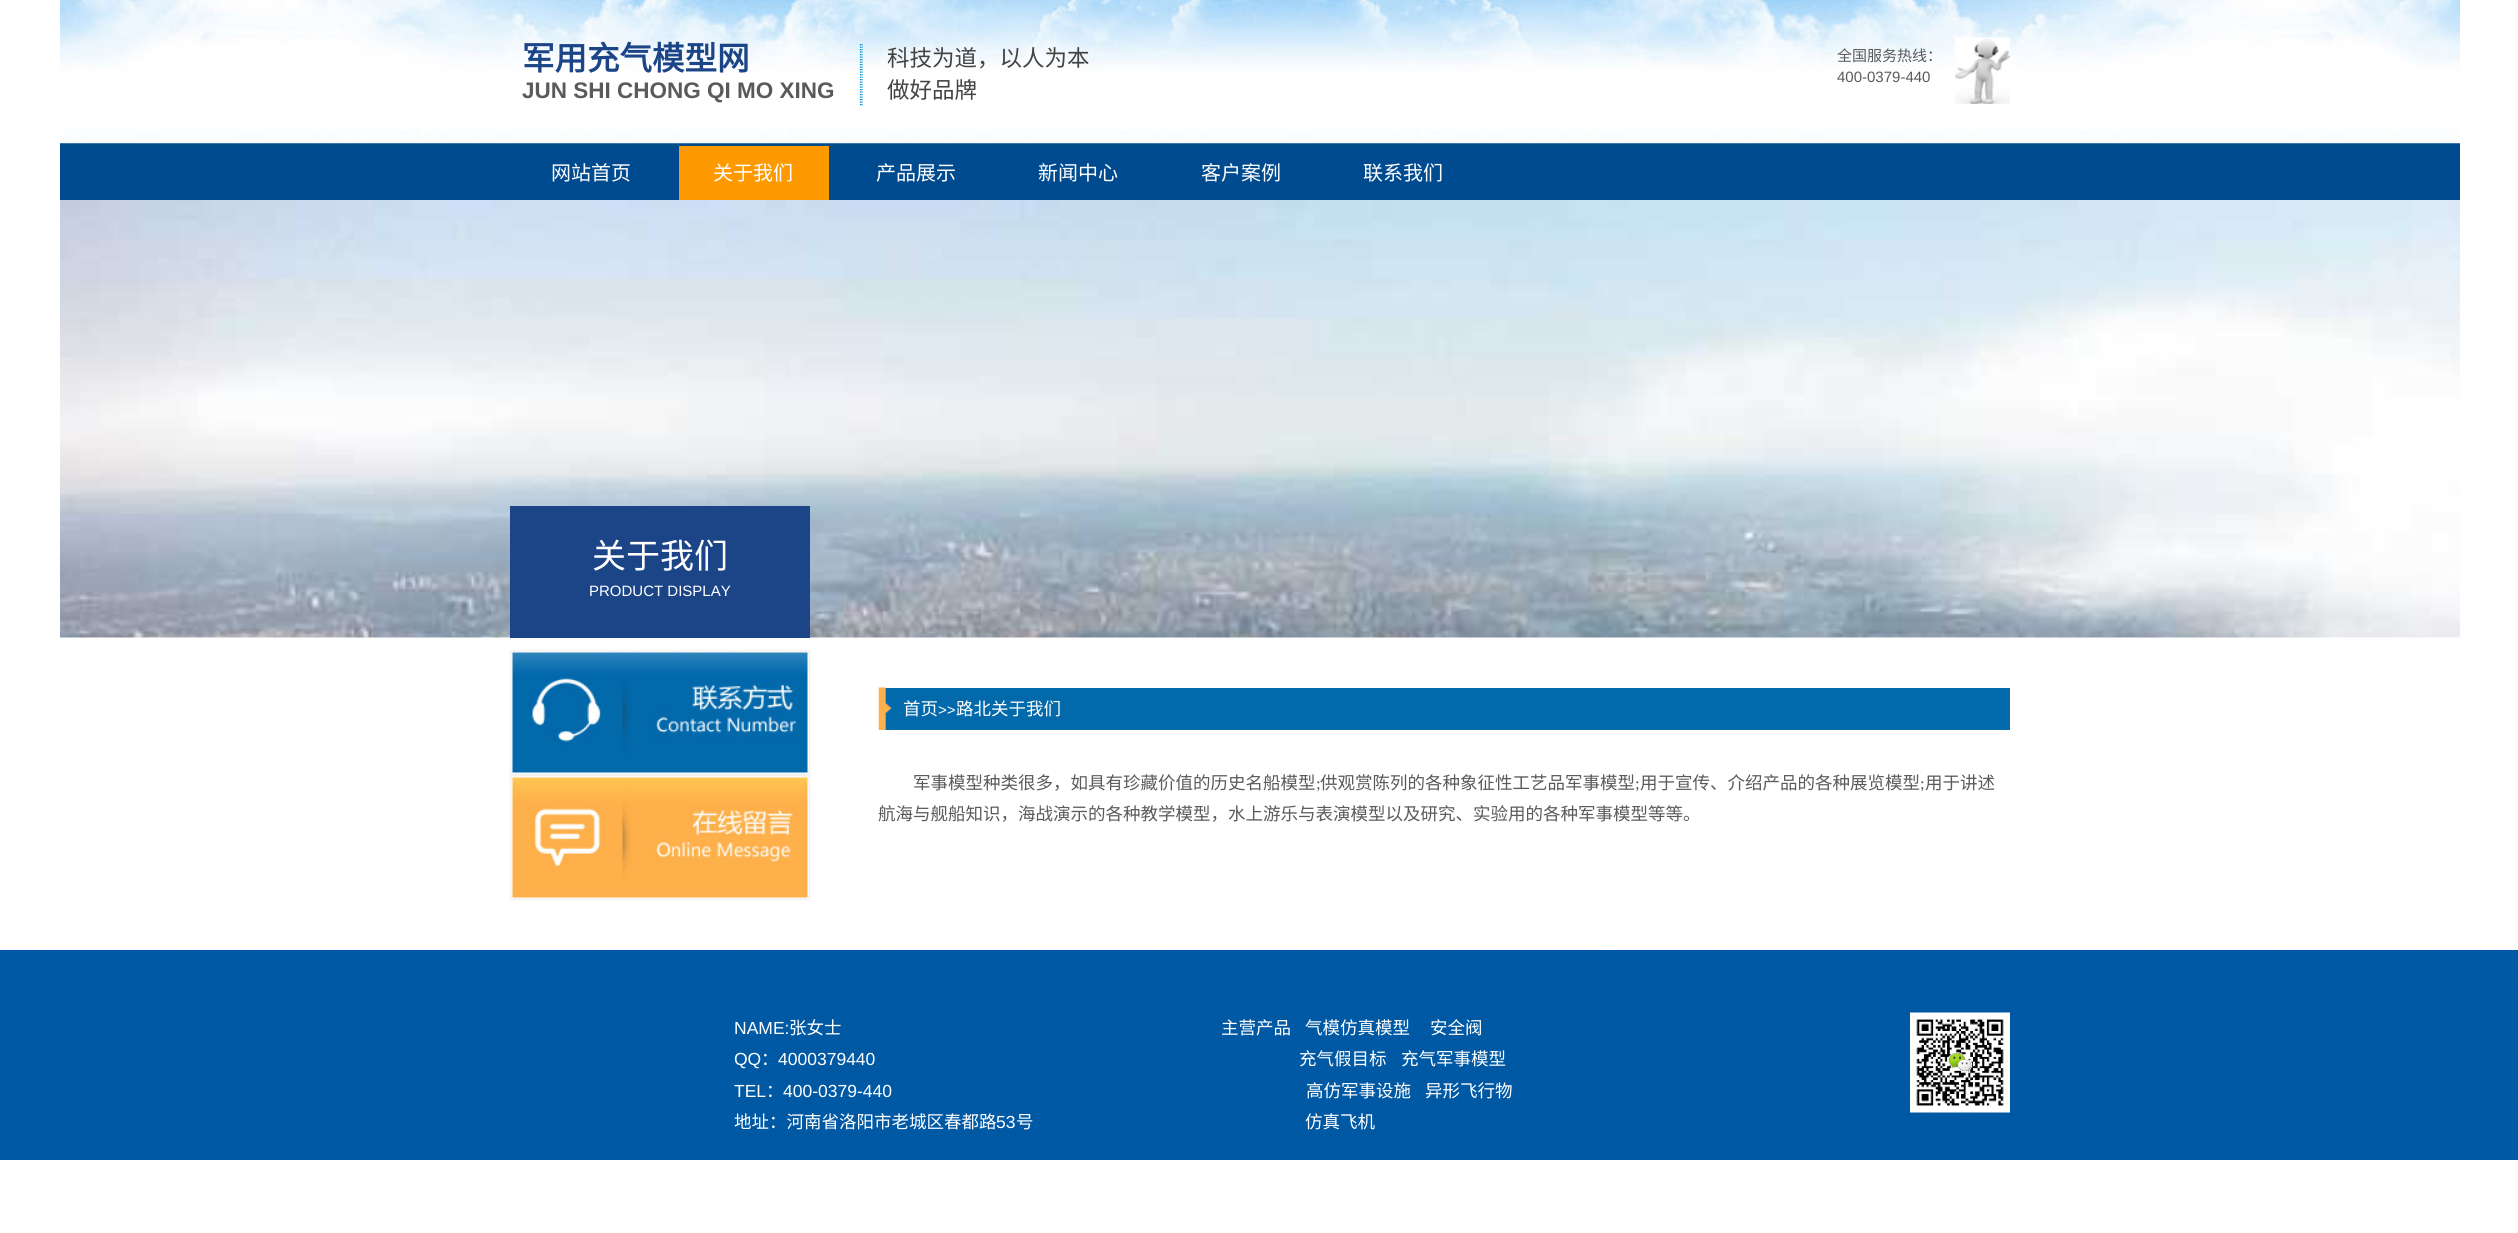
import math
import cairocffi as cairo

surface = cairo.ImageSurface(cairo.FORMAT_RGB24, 2518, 1233)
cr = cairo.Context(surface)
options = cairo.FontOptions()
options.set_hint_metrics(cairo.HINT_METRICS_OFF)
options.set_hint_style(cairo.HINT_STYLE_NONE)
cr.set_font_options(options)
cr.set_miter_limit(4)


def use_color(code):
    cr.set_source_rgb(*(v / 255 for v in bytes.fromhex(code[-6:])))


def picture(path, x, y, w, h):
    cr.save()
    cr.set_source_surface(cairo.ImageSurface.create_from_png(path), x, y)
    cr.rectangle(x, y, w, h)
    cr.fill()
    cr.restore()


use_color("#ffffff")
cr.paint()
picture("img1.png", 60, 0, 2400, 200)
cr.new_path()
cr.move_to(860.5, 44)
cr.line_to(860.5, 106)
use_color("#028bcf")
cr.set_line_width(1.2)
cr.set_dash([1.25, 1.25])
cr.stroke()
cr.select_font_face("Noto Sans CJK SC", cairo.FONT_SLANT_NORMAL, cairo.FONT_WEIGHT_BOLD)
cr.set_font_size(32.5)
use_color("#1c4587")
cr.move_to(522, 70)
cr.show_text("军用充气模型网")
cr.select_font_face("Liberation Sans", cairo.FONT_SLANT_NORMAL, cairo.FONT_WEIGHT_BOLD)
cr.set_font_size(22.5)
use_color("#5a5a5a")
cr.move_to(522, 98)
cr.show_text("JUN SHI CHONG QI MO XING")
cr.new_path()
cr.move_to(862, 44)
cr.line_to(862, 106)
use_color("#028bcf")
cr.stroke()
cr.select_font_face("Noto Sans CJK SC")
use_color("#434343")
cr.move_to(887, 66)
cr.show_text("科技为道，以人为本")
cr.move_to(887, 98)
cr.show_text("做好品牌")
cr.set_font_size(15)
use_color("#5a5a5a")
cr.move_to(1837, 61)
cr.show_text("全国服务热线：")
cr.select_font_face("Liberation Sans")
cr.move_to(1837, 82)
cr.show_text("400-0379-440")
picture("img2.png", 1955, 37, 55, 67)
cr.select_font_face("Noto Sans CJK SC")
cr.set_font_size(20)
use_color("#ffffff")
cr.move_to(551, 180)
cr.show_text("网站首页")
use_color("#ff9900")
cr.rectangle(679, 146, 150, 54)
cr.fill()
use_color("#ffffff")
cr.move_to(713, 180)
cr.show_text("关于我们")
cr.move_to(876, 180)
cr.show_text("产品展示")
cr.move_to(1038, 180)
cr.show_text("新闻中心")
cr.move_to(1201, 180)
cr.show_text("客户案例")
cr.move_to(1363, 180)
cr.show_text("联系我们")
picture("img3.png", 60, 200, 2400, 438)
use_color("#1c4587")
cr.rectangle(510, 506, 300, 132)
cr.fill()
cr.set_font_size(34)
use_color("#ffffff")
cr.move_to(592, 568)
cr.show_text("关于我们")
cr.select_font_face("Liberation Sans")
cr.set_font_size(15)
cr.move_to(589, 596)
cr.show_text("PRODUCT DISPLAY")
picture("img4.png", 510, 650, 300, 125)
picture("img5.png", 510, 775, 300, 125)
use_color("#0269ab")
cr.rectangle(885, 688, 1125, 42)
cr.fill()
picture("img6.png", 878, 687, 14, 43)
cr.select_font_face("Noto Sans CJK SC")
cr.set_font_size(17.5)
use_color("#ffffff")
cr.move_to(903, 715)
cr.show_text("首页")
cr.select_font_face("Liberation Sans")
cr.set_font_size(15)
cr.move_to(938, 715)
cr.show_text(">>")
cr.select_font_face("Noto Sans CJK SC")
cr.set_font_size(17.5)
cr.move_to(956, 715)
cr.show_text("路北关于我们")
use_color("#5a5a5a")
cr.move_to(913, 789)
cr.show_text("军事模型种类很多，如具有珍藏价值的历史名船模型")
cr.select_font_face("Carlito")
cr.move_to(1316, 789)
cr.show_text(";")
cr.select_font_face("Noto Sans CJK SC")
cr.move_to(1320, 789)
cr.show_text("供观赏陈列的各种象征性工艺品军事模型")
cr.select_font_face("Carlito")
cr.move_to(1635, 789)
cr.show_text(";")
cr.select_font_face("Noto Sans CJK SC")
cr.move_to(1640, 789)
cr.show_text("用于宣传、介绍产品的各种展览模型")
cr.select_font_face("Carlito")
cr.move_to(1920, 789)
cr.show_text(";")
cr.select_font_face("Noto Sans CJK SC")
cr.move_to(1925, 789)
cr.show_text("用于讲述")
cr.move_to(878, 820)
cr.show_text("航海与舰船知识，海战演示的各种教学模型，水上游乐与表演模型以及研究、实验用的各种军事模型等等。")
picture("img7.png", 0, 950, 2518, 210)
cr.select_font_face("Liberation Sans")
use_color("#ffffff")
cr.move_to(734, 1034)
cr.show_text("NAME:")
cr.select_font_face("Noto Sans CJK SC")
cr.move_to(789, 1034)
cr.show_text("张女士")
cr.move_to(1221, 1034)
cr.show_text("主营产品")
cr.move_to(1305, 1034)
cr.show_text("气模仿真模型")
cr.move_to(1430, 1034)
cr.show_text("安全阀")
cr.select_font_face("Liberation Sans")
cr.move_to(734, 1065)
cr.show_text("QQ")
cr.select_font_face("Noto Sans CJK SC")
cr.move_to(761, 1065)
cr.show_text("：")
cr.select_font_face("Liberation Sans")
cr.move_to(778, 1065)
cr.show_text("4000379440")
cr.select_font_face("Noto Sans CJK SC")
cr.move_to(1299, 1065)
cr.show_text("充气假目标")
cr.move_to(1401, 1065)
cr.show_text("充气军事模型")
cr.select_font_face("Liberation Sans")
cr.move_to(734, 1097)
cr.show_text("TEL")
cr.select_font_face("Noto Sans CJK SC")
cr.move_to(766, 1097)
cr.show_text("：")
cr.select_font_face("Liberation Sans")
cr.move_to(783, 1097)
cr.show_text("400-0379-440")
cr.select_font_face("Noto Sans CJK SC")
cr.move_to(1306, 1097)
cr.show_text("高仿军事设施")
cr.move_to(1425, 1097)
cr.show_text("异形飞行物")
cr.move_to(734, 1128)
cr.show_text("地址：河南省洛阳市老城区春都路")
cr.select_font_face("Liberation Sans")
cr.move_to(996, 1128)
cr.show_text("53")
cr.select_font_face("Noto Sans CJK SC")
cr.move_to(1016, 1128)
cr.show_text("号")
cr.move_to(1305, 1128)
cr.show_text("仿真飞机")
picture("img8.png", 1910, 1012, 100, 101)
surface.write_to_png("result.png")
